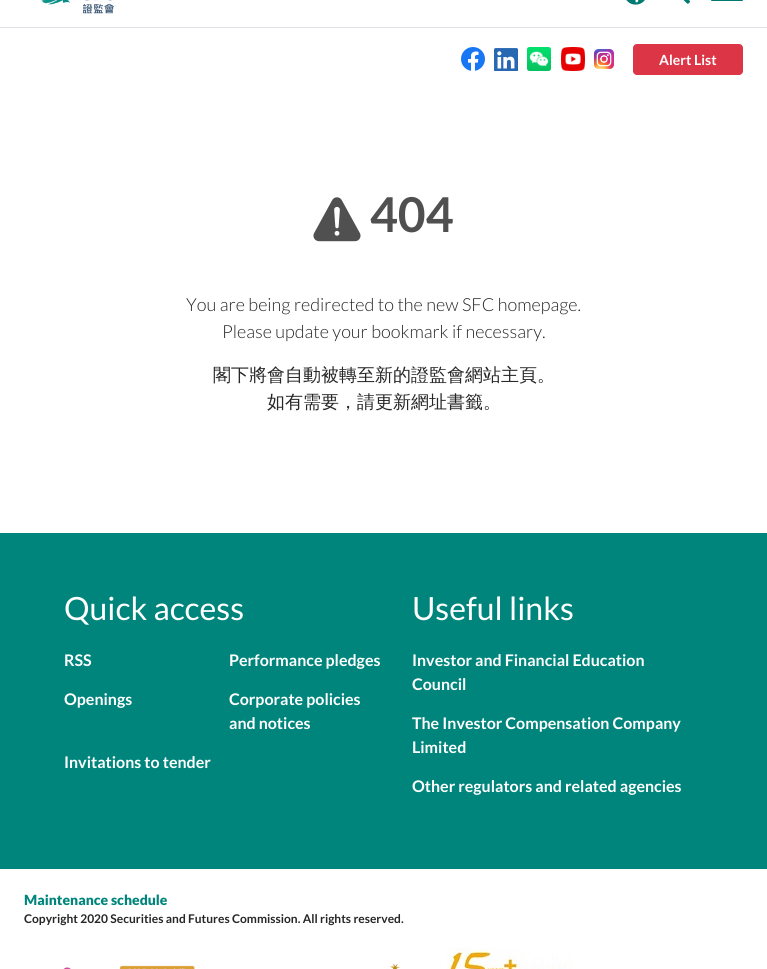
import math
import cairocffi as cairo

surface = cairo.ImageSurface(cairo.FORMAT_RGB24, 767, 969)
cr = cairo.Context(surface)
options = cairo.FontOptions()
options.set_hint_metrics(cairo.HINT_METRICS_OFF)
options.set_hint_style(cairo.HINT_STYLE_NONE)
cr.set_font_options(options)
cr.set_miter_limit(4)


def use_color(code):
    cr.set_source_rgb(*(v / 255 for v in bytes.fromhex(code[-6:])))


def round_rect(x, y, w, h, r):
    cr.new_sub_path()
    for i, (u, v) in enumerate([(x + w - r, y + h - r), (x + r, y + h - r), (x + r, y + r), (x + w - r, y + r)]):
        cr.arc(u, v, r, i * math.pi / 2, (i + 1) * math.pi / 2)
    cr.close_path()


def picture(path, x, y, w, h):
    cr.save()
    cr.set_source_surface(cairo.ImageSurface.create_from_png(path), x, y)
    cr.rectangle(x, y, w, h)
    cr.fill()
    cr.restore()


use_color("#ffffff")
cr.paint()
picture("img1.png", 41, 0, 73, 14)
picture("img2.png", 626, 0, 19, 5)
picture("img3.png", 683, 0, 7, 4)
use_color("#007a72")
round_rect(711, -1, 32, 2, 1)
cr.fill()
use_color("#dee2e6")
cr.rectangle(0, 27, 767, 1)
cr.fill()
picture("img4.png", 461, 47, 24, 24)
picture("img5.png", 494, 48, 24, 23)
picture("img6.png", 527, 47, 24, 24)
picture("img7.png", 561, 47, 24, 24)
picture("img8.png", 594, 49, 20, 20)
use_color("#dc3545")
round_rect(633.5, 44.5, 109, 30, 3.5)
cr.fill_preserve()
cr.set_line_width(1)
cr.stroke()
cr.select_font_face("Lato", cairo.FONT_SLANT_NORMAL, cairo.FONT_WEIGHT_BOLD)
cr.set_font_size(14)
use_color("#ffffff")
cr.move_to(659, 65)
cr.show_text("Alert List")
picture("img9.png", 313, 197, 48, 45)
cr.set_font_size(48)
use_color("#505050")
cr.move_to(370, 232)
cr.show_text("404")
cr.select_font_face("Lato Light")
cr.set_font_size(18)
use_color("#262626")
cr.move_to(186, 311)
cr.show_text("You are being redirected to the new SFC homepage.")
cr.move_to(222, 338)
cr.show_text("Please update your bookmark if necessary.")
cr.select_font_face("WenQuanYi Zen Hei Medium")
cr.move_to(213, 381)
cr.show_text("閣下將會自動被轉至新的證監會網站主頁。")
cr.move_to(267, 408)
cr.show_text("如有需要，請更新網址書籤。")
use_color("#00857c")
cr.rectangle(0, 533, 767, 336)
cr.fill()
cr.select_font_face("Lato")
cr.set_font_size(32)
use_color("#ffffff")
cr.move_to(64, 620)
cr.show_text("Quick access")
cr.select_font_face("Lato", cairo.FONT_SLANT_NORMAL, cairo.FONT_WEIGHT_BOLD)
cr.set_font_size(16)
cr.move_to(64, 666)
cr.show_text("RSS")
cr.move_to(229, 666)
cr.show_text("Performance pledges")
cr.move_to(64, 705)
cr.show_text("Openings")
cr.move_to(229, 705)
cr.show_text("Corporate policies")
cr.move_to(229, 729)
cr.show_text("and notices")
cr.move_to(64, 768)
cr.show_text("Invitations to tender")
cr.select_font_face("Lato")
cr.set_font_size(32)
cr.move_to(412, 620)
cr.show_text("Useful links")
cr.select_font_face("Lato", cairo.FONT_SLANT_NORMAL, cairo.FONT_WEIGHT_BOLD)
cr.set_font_size(16)
cr.move_to(412, 666)
cr.show_text("Investor and Financial Education")
cr.move_to(412, 690)
cr.show_text("Council")
cr.move_to(412, 729)
cr.show_text("The Investor Compensation Company")
cr.move_to(412, 753)
cr.show_text("Limited")
cr.move_to(412, 792)
cr.show_text("Other regulators and related agencies")
cr.select_font_face("Lato Black")
cr.set_font_size(14)
use_color("#00857c")
cr.move_to(24, 905)
cr.show_text("Maintenance schedule")
cr.select_font_face("Lato", cairo.FONT_SLANT_NORMAL, cairo.FONT_WEIGHT_BOLD)
cr.set_font_size(12)
use_color("#262626")
cr.move_to(24, 923)
cr.show_text("Copyright 2020 Securities and Futures Commission. All rights reserved.")
picture("img10.png", 63, 965, 132, 4)
picture("img11.png", 390, 963, 10, 6)
picture("img12.png", 447, 948, 125, 21)
surface.write_to_png("result.png")
